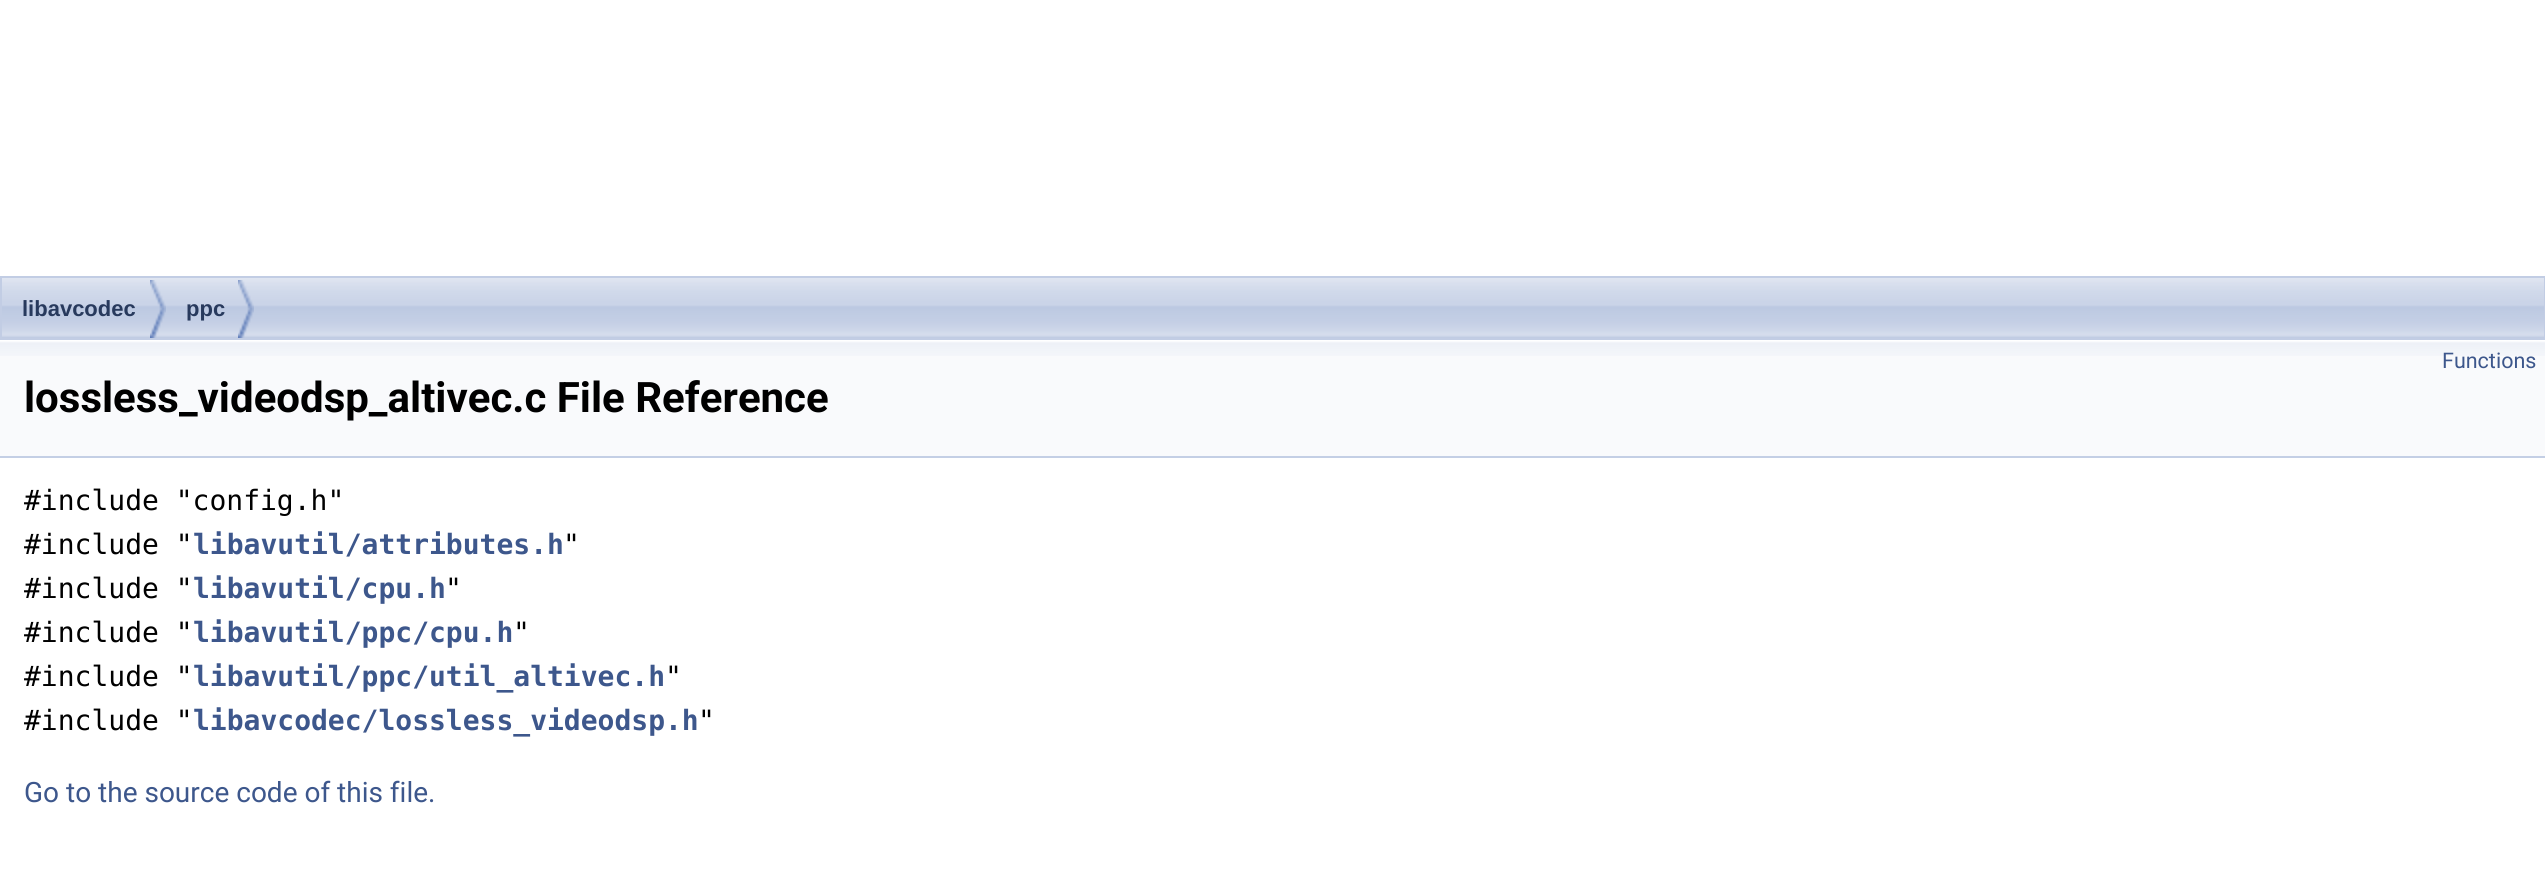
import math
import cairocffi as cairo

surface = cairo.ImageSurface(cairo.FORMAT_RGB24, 2545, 875)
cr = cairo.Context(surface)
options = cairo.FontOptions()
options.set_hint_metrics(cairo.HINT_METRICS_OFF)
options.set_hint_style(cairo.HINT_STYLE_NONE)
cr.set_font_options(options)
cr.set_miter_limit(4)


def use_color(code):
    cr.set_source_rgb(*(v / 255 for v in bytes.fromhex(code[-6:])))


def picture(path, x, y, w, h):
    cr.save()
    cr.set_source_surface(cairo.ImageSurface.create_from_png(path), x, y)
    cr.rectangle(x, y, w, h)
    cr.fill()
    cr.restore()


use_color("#ffffff")
cr.paint()
picture("img1.png", 2, 278, 2542, 60)
cr.rectangle(1, 277, 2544, 62)
use_color("#c2cde4")
cr.stroke()
picture("img2.png", 150, 280, 16, 58)
cr.select_font_face("Liberation Sans", cairo.FONT_SLANT_NORMAL, cairo.FONT_WEIGHT_BOLD)
cr.set_font_size(22)
use_color("#283a5d")
cr.move_to(22, 316)
cr.show_text("libavcodec")
picture("img2.png", 238, 280, 16, 58)
cr.move_to(186, 316)
cr.show_text("ppc")
use_color("#f9fafc")
cr.rectangle(0, 356, 2545, 100)
cr.fill()
picture("img3.png", 0, 340, 2545, 16)
use_color("#c4cfe5")
cr.rectangle(0, 456, 2545, 2)
cr.fill()
cr.select_font_face("Roboto")
cr.set_font_size(21.5)
use_color("#3d578c")
cr.move_to(2442, 368)
cr.show_text("Functions")
cr.select_font_face("Roboto", cairo.FONT_SLANT_NORMAL, cairo.FONT_WEIGHT_BOLD)
cr.set_font_size(42)
use_color("#000000")
cr.move_to(24, 412)
cr.show_text("lossless_videodsp_altivec.c File Reference")
cr.select_font_face("DejaVu Sans Mono")
cr.set_font_size(28)
cr.move_to(24, 510)
cr.show_text("#include \"config.h\"")
cr.move_to(24, 554)
cr.show_text("#include \"")
cr.select_font_face("DejaVu Sans Mono", cairo.FONT_SLANT_NORMAL, cairo.FONT_WEIGHT_BOLD)
use_color("#3d578c")
cr.move_to(193, 554)
cr.show_text("libavutil/attributes.h")
cr.select_font_face("DejaVu Sans Mono")
use_color("#000000")
cr.move_to(563, 554)
cr.show_text("\"")
cr.move_to(24, 598)
cr.show_text("#include \"")
cr.select_font_face("DejaVu Sans Mono", cairo.FONT_SLANT_NORMAL, cairo.FONT_WEIGHT_BOLD)
use_color("#3d578c")
cr.move_to(193, 598)
cr.show_text("libavutil/cpu.h")
cr.select_font_face("DejaVu Sans Mono")
use_color("#000000")
cr.move_to(445, 598)
cr.show_text("\"")
cr.move_to(24, 642)
cr.show_text("#include \"")
cr.select_font_face("DejaVu Sans Mono", cairo.FONT_SLANT_NORMAL, cairo.FONT_WEIGHT_BOLD)
use_color("#3d578c")
cr.move_to(193, 642)
cr.show_text("libavutil/ppc/cpu.h")
cr.select_font_face("DejaVu Sans Mono")
use_color("#000000")
cr.move_to(513, 642)
cr.show_text("\"")
cr.move_to(24, 686)
cr.show_text("#include \"")
cr.select_font_face("DejaVu Sans Mono", cairo.FONT_SLANT_NORMAL, cairo.FONT_WEIGHT_BOLD)
use_color("#3d578c")
cr.move_to(193, 686)
cr.show_text("libavutil/ppc/util_altivec.h")
cr.select_font_face("DejaVu Sans Mono")
use_color("#000000")
cr.move_to(665, 686)
cr.show_text("\"")
cr.move_to(24, 730)
cr.show_text("#include \"")
cr.select_font_face("DejaVu Sans Mono", cairo.FONT_SLANT_NORMAL, cairo.FONT_WEIGHT_BOLD)
use_color("#3d578c")
cr.move_to(193, 730)
cr.show_text("libavcodec/lossless_videodsp.h")
cr.select_font_face("DejaVu Sans Mono")
use_color("#000000")
cr.move_to(698, 730)
cr.show_text("\"")
cr.select_font_face("Roboto")
use_color("#3d578c")
cr.move_to(24, 802)
cr.show_text("Go to the source code of this file.")
surface.write_to_png("result.png")
